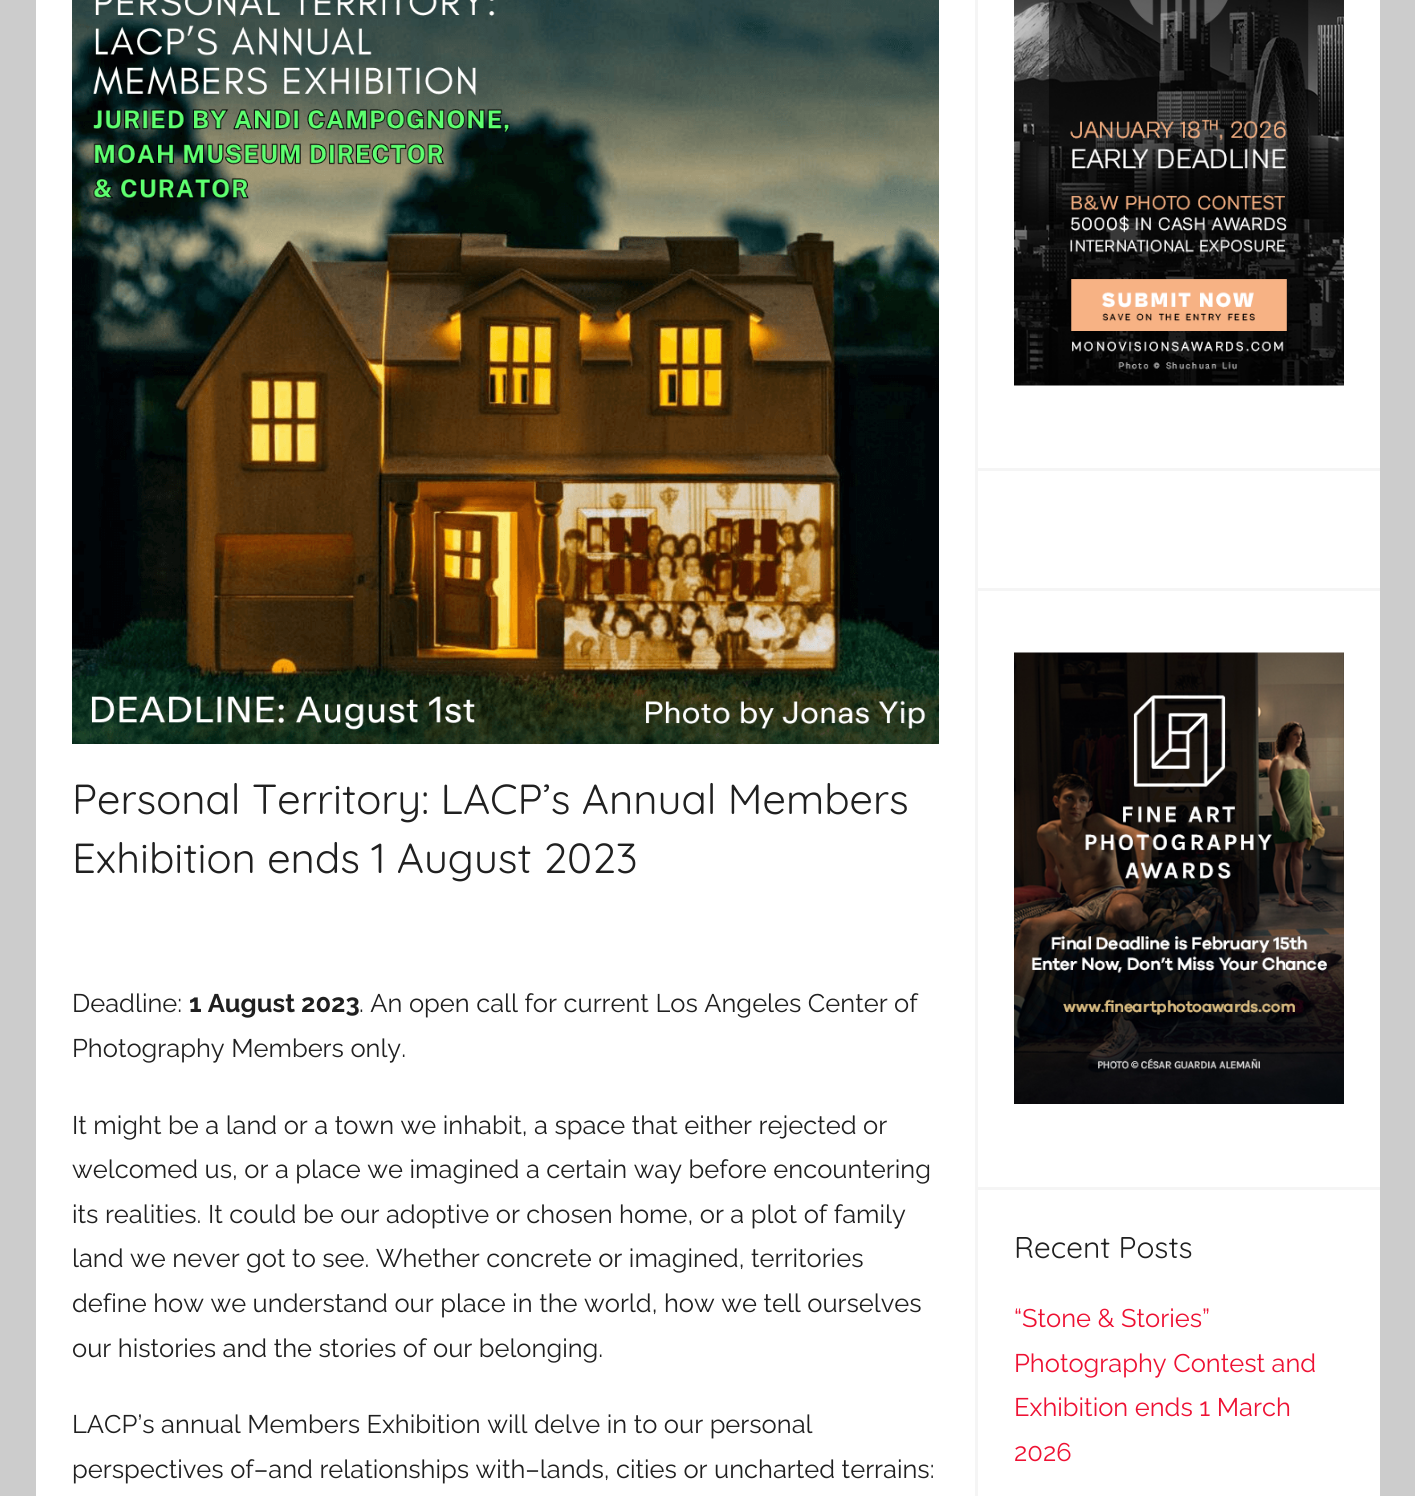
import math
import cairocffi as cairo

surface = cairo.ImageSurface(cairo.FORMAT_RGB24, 1415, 1496)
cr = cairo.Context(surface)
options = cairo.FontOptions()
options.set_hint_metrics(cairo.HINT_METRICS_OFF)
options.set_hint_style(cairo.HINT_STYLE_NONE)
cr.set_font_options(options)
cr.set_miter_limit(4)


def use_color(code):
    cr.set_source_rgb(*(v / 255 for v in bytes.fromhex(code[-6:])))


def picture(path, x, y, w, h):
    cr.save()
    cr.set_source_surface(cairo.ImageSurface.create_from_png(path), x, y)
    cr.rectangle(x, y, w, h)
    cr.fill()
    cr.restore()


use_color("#cccccc")
cr.paint()
use_color("#f5f5f5")
cr.rectangle(975, 0, 3, 1496)
cr.fill()
use_color("#ffffff")
cr.rectangle(36, 0, 939, 1496)
cr.fill()
picture("img1.png", 72, 0, 867, 744)
cr.select_font_face("Quicksand Light")
cr.set_font_size(42)
use_color("#202020")
cr.move_to(72, 814)
cr.show_text("Personal Territory: LACP’s Annual Members")
cr.move_to(72, 873)
cr.show_text("Exhibition ends 1 August 2023")
cr.select_font_face("Raleway Thin")
cr.set_font_size(25.5)
cr.move_to(72, 1012)
cr.show_text("Deadline:")
cr.select_font_face("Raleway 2 Thin")
cr.move_to(189, 1012)
cr.show_text("1 August 2023")
cr.select_font_face("Raleway Thin")
cr.move_to(359, 1012)
cr.show_text(". An open call for current Los Angeles Center of")
cr.move_to(72, 1057)
cr.show_text("Photography Members only.")
cr.move_to(72, 1134)
cr.show_text("It might be a land or a town we inhabit, a space that either rejected or")
cr.move_to(72, 1178)
cr.show_text("welcomed us, or a place we imagined a certain way before encountering")
cr.move_to(72, 1223)
cr.show_text("its realities. It could be our adoptive or chosen home, or a plot of family")
cr.move_to(72, 1267)
cr.show_text("land we never got to see. Whether concrete or imagined, territories")
cr.move_to(72, 1312)
cr.show_text("define how we understand our place in the world, how we tell ourselves")
cr.move_to(72, 1357)
cr.show_text("our histories and the stories of our belonging.")
cr.move_to(72, 1433)
cr.show_text("LACP’s annual Members Exhibition will delve in to our personal")
cr.move_to(72, 1478)
cr.show_text("perspectives of–and relationships with–lands, cities or uncharted terrains:")
use_color("#ffffff")
cr.rectangle(978, 0, 402, 1496)
cr.fill()
use_color("#f5f5f5")
cr.rectangle(978, 468, 402, 3)
cr.fill()
picture("img2.png", 1014, 0, 330, 386)
cr.rectangle(978, 588, 402, 3)
cr.fill()
cr.rectangle(978, 1187, 402, 3)
cr.fill()
picture("img3.png", 1014, 652, 330, 452)
cr.select_font_face("Quicksand Light")
cr.set_font_size(30)
use_color("#202020")
cr.move_to(1014, 1258)
cr.show_text("Recent Posts")
cr.select_font_face("Raleway Thin")
cr.set_font_size(25.5)
use_color("#ee1133")
cr.move_to(1014, 1327)
cr.show_text("“Stone & Stories”")
cr.move_to(1014, 1372)
cr.show_text("Photography Contest and")
cr.move_to(1014, 1416)
cr.show_text("Exhibition ends 1 March")
cr.move_to(1014, 1461)
cr.show_text("2026")
surface.write_to_png("result.png")
